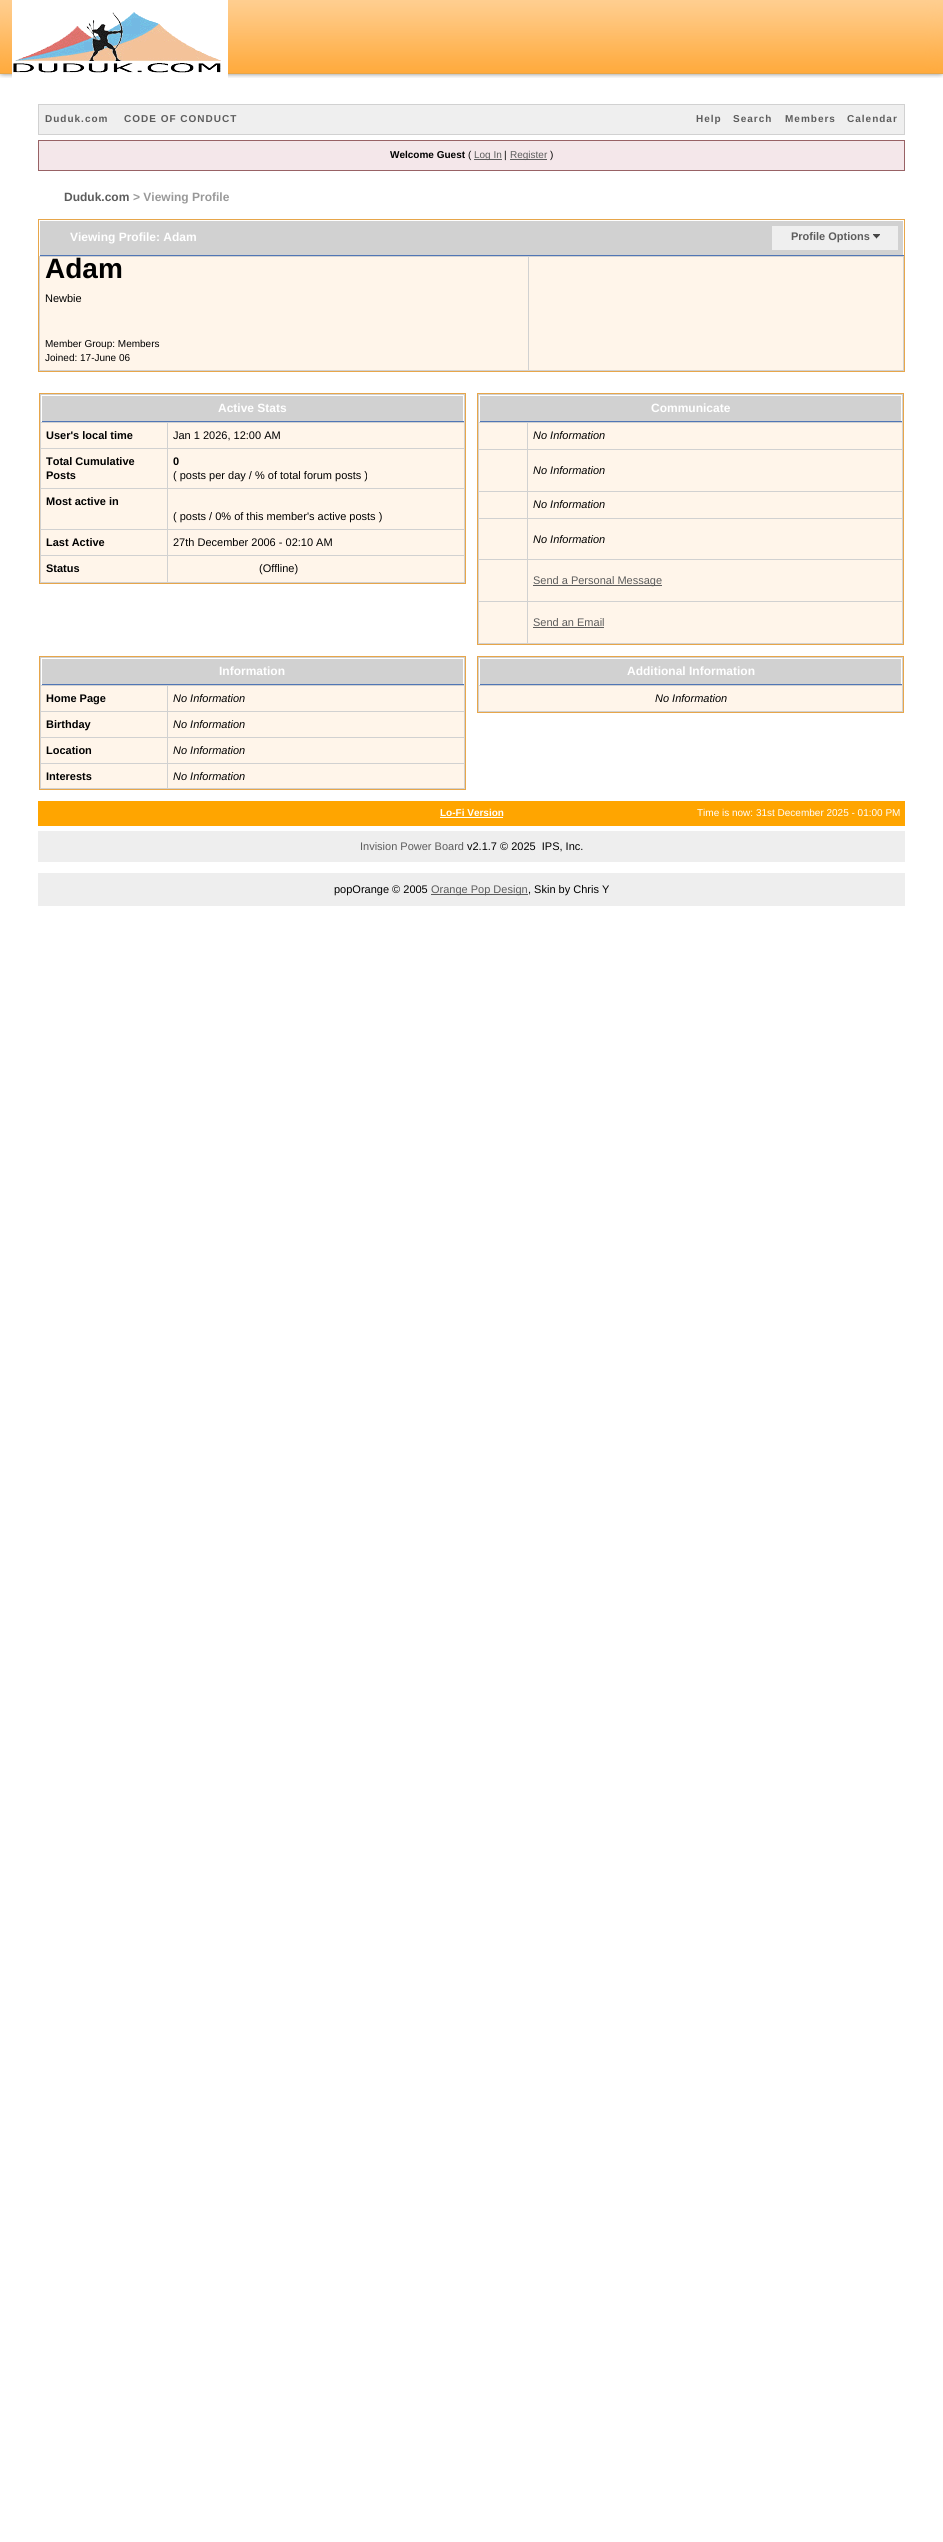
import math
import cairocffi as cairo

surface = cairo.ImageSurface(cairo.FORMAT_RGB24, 943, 2542)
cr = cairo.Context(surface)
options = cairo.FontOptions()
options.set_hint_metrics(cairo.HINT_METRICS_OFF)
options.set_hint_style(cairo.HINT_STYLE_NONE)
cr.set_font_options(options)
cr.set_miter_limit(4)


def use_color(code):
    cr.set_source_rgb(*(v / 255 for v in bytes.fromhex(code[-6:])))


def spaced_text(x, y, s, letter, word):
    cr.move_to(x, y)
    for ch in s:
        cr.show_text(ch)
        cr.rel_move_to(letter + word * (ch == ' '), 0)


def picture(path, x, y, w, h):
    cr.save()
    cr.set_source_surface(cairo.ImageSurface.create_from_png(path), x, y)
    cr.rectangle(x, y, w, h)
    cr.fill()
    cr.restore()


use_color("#ffffff")
cr.paint()
picture("img1.png", 0, 0, 12, 78)
picture("img2.png", 13, 12, 208, 61)
picture("img3.png", 228, 0, 697, 78)
picture("img4.png", 925, 0, 18, 78)
use_color("#efefef")
cr.rectangle(38.5, 104.5, 866, 30)
cr.fill_preserve()
use_color("#d1d1d1")
cr.set_line_width(1)
cr.stroke()
cr.select_font_face("Liberation Sans", cairo.FONT_SLANT_NORMAL, cairo.FONT_WEIGHT_BOLD)
cr.set_font_size(10)
use_color("#5c5c5c")
spaced_text(45, 122, "Duduk.com", 1, 0)
spaced_text(124, 122, "CODE OF CONDUCT", 1, 0)
spaced_text(696, 122, "Help", 1, 0)
spaced_text(733, 122, "Search", 1, 0)
spaced_text(785, 122, "Members", 1, 0)
spaced_text(847, 122, "Calendar", 1, 0)
use_color("#f4e7ea")
cr.rectangle(38.5, 140.5, 866, 30)
cr.fill_preserve()
use_color("#986265")
cr.stroke()
use_color("#000000")
cr.move_to(390, 158)
cr.show_text("Welcome Guest")
cr.select_font_face("Liberation Sans")
cr.move_to(468, 158)
cr.show_text("(")
use_color("#5c5c5c")
cr.rectangle(474, 159, 28, 1)
cr.fill()
cr.move_to(474, 158)
cr.show_text("Log In")
use_color("#000000")
cr.move_to(504, 158)
cr.show_text("|")
use_color("#5c5c5c")
cr.rectangle(510, 159, 37, 1)
cr.fill()
cr.move_to(510, 158)
cr.show_text("Register")
use_color("#000000")
cr.move_to(550, 158)
cr.show_text(")")
cr.select_font_face("Liberation Sans", cairo.FONT_SLANT_NORMAL, cairo.FONT_WEIGHT_BOLD)
cr.set_font_size(12)
use_color("#5c5c5c")
cr.move_to(64, 201)
cr.show_text("Duduk.com")
use_color("#999999")
cr.move_to(133, 201)
cr.show_text("> Viewing Profile")
use_color("#d1d1d1")
cr.rectangle(39, 221, 865, 150)
cr.fill()
cr.rectangle(38.5, 219.5, 866, 152)
use_color("#e7a64a")
cr.stroke()
use_color("#ffffff")
cr.rectangle(903, 220, 1, 36)
cr.fill()
use_color("#5176b5")
cr.rectangle(39, 255, 865, 1)
cr.fill()
use_color("#ffffff")
cr.rectangle(39, 220, 1, 36)
cr.fill()
cr.move_to(70, 241)
cr.show_text("Viewing Profile: Adam")
use_color("#efefef")
cr.rectangle(772, 226, 126, 24)
cr.fill()
cr.set_font_size(11)
use_color("#5c5c5c")
cr.move_to(791, 240)
cr.show_text("Profile Options")
picture("img5.png", 873, 234, 7, 5)
use_color("#fff5ea")
cr.rectangle(40, 257, 488, 113)
cr.fill()
cr.set_font_size(28)
use_color("#000000")
cr.move_to(45, 278)
cr.show_text("Adam")
cr.select_font_face("Liberation Sans")
cr.set_font_size(11)
cr.move_to(45, 302)
cr.show_text("Newbie")
cr.set_font_size(10)
cr.move_to(45, 347)
cr.show_text("Member Group: Members")
cr.move_to(45, 361)
cr.show_text("Joined: 17-June 06")
use_color("#fff5ea")
cr.rectangle(529, 257, 374, 113)
cr.fill()
use_color("#d1d1d1")
cr.rectangle(39.5, 393.5, 426, 190)
cr.fill_preserve()
use_color("#e7a64a")
cr.stroke()
use_color("#ffffff")
cr.rectangle(41, 395, 423, 1)
cr.fill()
cr.rectangle(463, 395, 1, 27)
cr.fill()
use_color("#5176b5")
cr.rectangle(41, 421, 423, 1)
cr.fill()
use_color("#ffffff")
cr.rectangle(41, 395, 1, 27)
cr.fill()
cr.select_font_face("Liberation Sans", cairo.FONT_SLANT_NORMAL, cairo.FONT_WEIGHT_BOLD)
cr.set_font_size(12)
cr.move_to(218, 412)
cr.show_text("Active Stats")
use_color("#fff5ea")
cr.rectangle(41, 423, 126, 25)
cr.fill()
cr.set_font_size(11)
use_color("#000000")
cr.move_to(46, 439)
cr.show_text("User's local time")
use_color("#fff5ea")
cr.rectangle(168, 423, 296, 25)
cr.fill()
cr.select_font_face("Liberation Sans")
use_color("#000000")
cr.move_to(173, 439)
cr.show_text("Jan 1 2026, 12:00 AM")
use_color("#fff5ea")
cr.rectangle(41, 449, 126, 39)
cr.fill()
cr.select_font_face("Liberation Sans", cairo.FONT_SLANT_NORMAL, cairo.FONT_WEIGHT_BOLD)
use_color("#000000")
cr.move_to(46, 465)
cr.show_text("Total Cumulative")
cr.move_to(46, 479)
cr.show_text("Posts")
use_color("#fff5ea")
cr.rectangle(168, 449, 296, 39)
cr.fill()
use_color("#000000")
cr.move_to(173, 465)
cr.show_text("0")
cr.select_font_face("Liberation Sans")
cr.move_to(173, 479)
cr.show_text("( posts per day / % of total forum posts )")
use_color("#fff5ea")
cr.rectangle(41, 489, 126, 40)
cr.fill()
cr.select_font_face("Liberation Sans", cairo.FONT_SLANT_NORMAL, cairo.FONT_WEIGHT_BOLD)
use_color("#000000")
cr.move_to(46, 505)
cr.show_text("Most active in")
use_color("#fff5ea")
cr.rectangle(168, 489, 296, 40)
cr.fill()
cr.select_font_face("Liberation Sans")
use_color("#000000")
cr.move_to(173, 520)
cr.show_text("( posts / 0% of this member's active posts )")
use_color("#fff5ea")
cr.rectangle(41, 530, 126, 25)
cr.fill()
cr.select_font_face("Liberation Sans", cairo.FONT_SLANT_NORMAL, cairo.FONT_WEIGHT_BOLD)
use_color("#000000")
cr.move_to(46, 546)
cr.show_text("Last Active")
use_color("#fff5ea")
cr.rectangle(168, 530, 296, 25)
cr.fill()
cr.select_font_face("Liberation Sans")
use_color("#000000")
cr.move_to(173, 546)
cr.show_text("27th December 2006 - 02:10 AM")
use_color("#fff5ea")
cr.rectangle(41, 556, 126, 26)
cr.fill()
cr.select_font_face("Liberation Sans", cairo.FONT_SLANT_NORMAL, cairo.FONT_WEIGHT_BOLD)
use_color("#000000")
cr.move_to(46, 572)
cr.show_text("Status")
use_color("#fff5ea")
cr.rectangle(168, 556, 296, 26)
cr.fill()
cr.select_font_face("Liberation Sans")
use_color("#000000")
cr.move_to(259, 572)
cr.show_text("(Offline)")
use_color("#d1d1d1")
cr.rectangle(477.5, 393.5, 426, 251)
cr.fill_preserve()
use_color("#e7a64a")
cr.stroke()
use_color("#ffffff")
cr.rectangle(479, 395, 423, 1)
cr.fill()
cr.rectangle(901, 395, 1, 27)
cr.fill()
use_color("#5176b5")
cr.rectangle(479, 421, 423, 1)
cr.fill()
use_color("#ffffff")
cr.rectangle(479, 395, 1, 27)
cr.fill()
cr.select_font_face("Liberation Sans", cairo.FONT_SLANT_NORMAL, cairo.FONT_WEIGHT_BOLD)
cr.set_font_size(12)
cr.move_to(651, 412)
cr.show_text("Communicate")
use_color("#fff5ea")
cr.rectangle(479, 423, 48, 26)
cr.fill()
cr.rectangle(528, 423, 374, 26)
cr.fill()
cr.select_font_face("Liberation Sans", cairo.FONT_SLANT_ITALIC)
cr.set_font_size(11)
use_color("#000000")
cr.move_to(533, 439)
cr.show_text("No Information")
use_color("#fff5ea")
cr.rectangle(479, 450, 48, 41)
cr.fill()
cr.rectangle(528, 450, 374, 41)
cr.fill()
use_color("#000000")
cr.move_to(533, 474)
cr.show_text("No Information")
use_color("#fff5ea")
cr.rectangle(479, 492, 48, 26)
cr.fill()
cr.rectangle(528, 492, 374, 26)
cr.fill()
use_color("#000000")
cr.move_to(533, 508)
cr.show_text("No Information")
use_color("#fff5ea")
cr.rectangle(479, 519, 48, 40)
cr.fill()
cr.rectangle(528, 519, 374, 40)
cr.fill()
use_color("#000000")
cr.move_to(533, 543)
cr.show_text("No Information")
use_color("#fff5ea")
cr.rectangle(479, 560, 48, 41)
cr.fill()
cr.rectangle(528, 560, 374, 41)
cr.fill()
use_color("#5c5c5c")
cr.rectangle(533, 585, 129, 1)
cr.fill()
cr.select_font_face("Liberation Sans")
cr.move_to(533, 584)
cr.show_text("Send a Personal Message")
use_color("#fff5ea")
cr.rectangle(479, 602, 48, 41)
cr.fill()
cr.rectangle(528, 602, 374, 41)
cr.fill()
use_color("#5c5c5c")
cr.move_to(533, 626)
cr.show_text("Send an Email")
cr.rectangle(533, 627, 71, 1)
cr.fill()
use_color("#d1d1d1")
cr.rectangle(39.5, 656.5, 426, 133)
cr.fill_preserve()
use_color("#e7a64a")
cr.stroke()
use_color("#ffffff")
cr.rectangle(41, 658, 423, 1)
cr.fill()
cr.rectangle(463, 658, 1, 27)
cr.fill()
use_color("#5176b5")
cr.rectangle(41, 684, 423, 1)
cr.fill()
use_color("#ffffff")
cr.rectangle(41, 658, 1, 27)
cr.fill()
cr.select_font_face("Liberation Sans", cairo.FONT_SLANT_NORMAL, cairo.FONT_WEIGHT_BOLD)
cr.set_font_size(12)
cr.move_to(219, 675)
cr.show_text("Information")
use_color("#fff5ea")
cr.rectangle(41, 686, 126, 25)
cr.fill()
cr.set_font_size(11)
use_color("#000000")
cr.move_to(46, 702)
cr.show_text("Home Page")
use_color("#fff5ea")
cr.rectangle(168, 686, 296, 25)
cr.fill()
cr.select_font_face("Liberation Sans", cairo.FONT_SLANT_ITALIC)
use_color("#000000")
cr.move_to(173, 702)
cr.show_text("No Information")
use_color("#fff5ea")
cr.rectangle(41, 712, 126, 25)
cr.fill()
cr.select_font_face("Liberation Sans", cairo.FONT_SLANT_NORMAL, cairo.FONT_WEIGHT_BOLD)
use_color("#000000")
cr.move_to(46, 728)
cr.show_text("Birthday")
use_color("#fff5ea")
cr.rectangle(168, 712, 296, 25)
cr.fill()
cr.select_font_face("Liberation Sans", cairo.FONT_SLANT_ITALIC)
use_color("#000000")
cr.move_to(173, 728)
cr.show_text("No Information")
use_color("#fff5ea")
cr.rectangle(41, 738, 126, 25)
cr.fill()
cr.select_font_face("Liberation Sans", cairo.FONT_SLANT_NORMAL, cairo.FONT_WEIGHT_BOLD)
use_color("#000000")
cr.move_to(46, 754)
cr.show_text("Location")
use_color("#fff5ea")
cr.rectangle(168, 738, 296, 25)
cr.fill()
cr.select_font_face("Liberation Sans", cairo.FONT_SLANT_ITALIC)
use_color("#000000")
cr.move_to(173, 754)
cr.show_text("No Information")
use_color("#fff5ea")
cr.rectangle(41, 764, 126, 24)
cr.fill()
cr.select_font_face("Liberation Sans", cairo.FONT_SLANT_NORMAL, cairo.FONT_WEIGHT_BOLD)
use_color("#000000")
cr.move_to(46, 780)
cr.show_text("Interests")
use_color("#fff5ea")
cr.rectangle(168, 764, 296, 24)
cr.fill()
cr.select_font_face("Liberation Sans", cairo.FONT_SLANT_ITALIC)
use_color("#000000")
cr.move_to(173, 780)
cr.show_text("No Information")
use_color("#d1d1d1")
cr.rectangle(477.5, 656.5, 426, 56)
cr.fill_preserve()
use_color("#e7a64a")
cr.stroke()
use_color("#ffffff")
cr.rectangle(479, 658, 423, 1)
cr.fill()
cr.rectangle(901, 658, 1, 27)
cr.fill()
use_color("#5176b5")
cr.rectangle(479, 684, 423, 1)
cr.fill()
use_color("#ffffff")
cr.rectangle(479, 658, 1, 27)
cr.fill()
cr.select_font_face("Liberation Sans", cairo.FONT_SLANT_NORMAL, cairo.FONT_WEIGHT_BOLD)
cr.set_font_size(12)
cr.move_to(627, 675)
cr.show_text("Additional Information")
use_color("#fff5ea")
cr.rectangle(479, 686, 423, 25)
cr.fill()
cr.select_font_face("Liberation Sans", cairo.FONT_SLANT_ITALIC)
cr.set_font_size(11)
use_color("#000000")
cr.move_to(655, 702)
cr.show_text("No Information")
use_color("#ffa500")
cr.rectangle(38, 801, 867, 25)
cr.fill()
cr.select_font_face("Liberation Sans", cairo.FONT_SLANT_NORMAL, cairo.FONT_WEIGHT_BOLD)
cr.set_font_size(10)
use_color("#ffffff")
cr.move_to(440, 816)
cr.show_text("Lo-Fi Version")
cr.rectangle(440, 817, 63, 1)
cr.fill()
cr.select_font_face("Liberation Sans")
cr.move_to(697, 816)
cr.show_text("Time is now: 31st December 2025 - 01:00 PM")
use_color("#eeeeee")
cr.rectangle(38, 831, 867, 31)
cr.fill()
cr.set_font_size(11)
use_color("#5c5c5c")
cr.move_to(360, 850)
cr.show_text("Invision Power Board")
use_color("#000000")
cr.move_to(467, 850)
cr.show_text("v2.1.7 © 2025  IPS, Inc.")
use_color("#eeeeee")
cr.rectangle(38, 873, 867, 33)
cr.fill()
use_color("#000000")
cr.move_to(334, 893)
cr.show_text("popOrange © 2005")
use_color("#5c5c5c")
cr.rectangle(431, 894, 97, 1)
cr.fill()
cr.move_to(431, 893)
cr.show_text("Orange Pop Design")
use_color("#000000")
cr.move_to(528, 893)
cr.show_text(", Skin by Chris Y")
surface.write_to_png("result.png")
